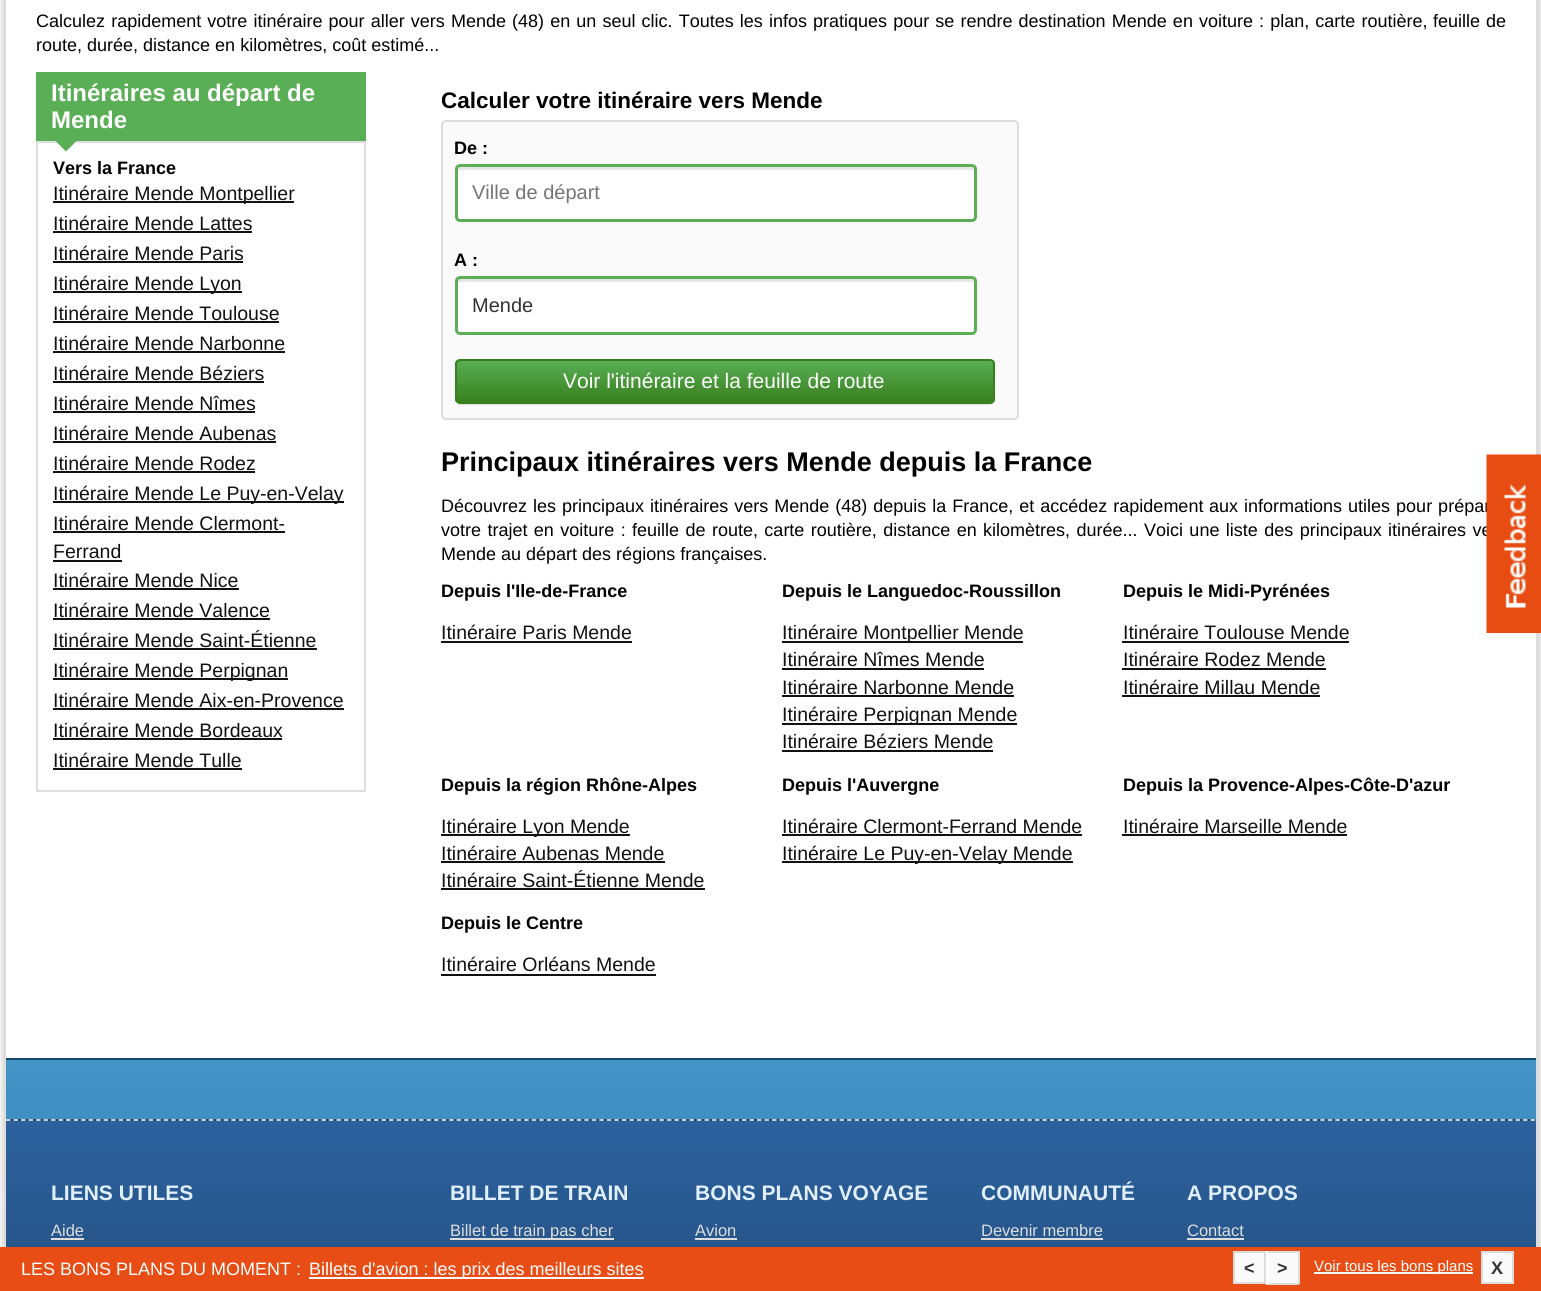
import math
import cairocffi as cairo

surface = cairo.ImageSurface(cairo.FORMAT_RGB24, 1541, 1291)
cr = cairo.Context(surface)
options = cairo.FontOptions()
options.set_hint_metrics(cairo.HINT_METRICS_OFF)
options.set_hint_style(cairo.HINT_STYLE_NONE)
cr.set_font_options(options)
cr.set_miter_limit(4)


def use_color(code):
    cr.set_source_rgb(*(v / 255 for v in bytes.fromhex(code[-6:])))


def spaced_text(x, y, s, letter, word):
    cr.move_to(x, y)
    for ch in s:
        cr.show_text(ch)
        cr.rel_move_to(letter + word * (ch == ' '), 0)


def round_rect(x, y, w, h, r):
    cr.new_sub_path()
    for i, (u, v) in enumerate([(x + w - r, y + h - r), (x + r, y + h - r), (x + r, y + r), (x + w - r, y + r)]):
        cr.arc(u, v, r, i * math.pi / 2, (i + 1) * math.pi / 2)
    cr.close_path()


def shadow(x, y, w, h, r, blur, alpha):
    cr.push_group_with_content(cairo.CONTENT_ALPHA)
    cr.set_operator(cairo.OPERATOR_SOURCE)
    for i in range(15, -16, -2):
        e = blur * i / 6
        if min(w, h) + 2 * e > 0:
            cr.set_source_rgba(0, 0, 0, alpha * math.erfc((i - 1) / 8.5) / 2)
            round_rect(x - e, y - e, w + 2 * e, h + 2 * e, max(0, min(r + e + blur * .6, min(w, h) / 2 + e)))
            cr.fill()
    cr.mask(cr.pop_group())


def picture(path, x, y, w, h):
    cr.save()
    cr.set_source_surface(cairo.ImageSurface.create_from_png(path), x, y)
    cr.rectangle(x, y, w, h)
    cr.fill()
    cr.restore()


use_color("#ffffff")
cr.paint()
use_color("#000000")
shadow(5, -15, 1533, 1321, 0, 5, 0.3)
use_color("#dddddd")
cr.rectangle(1536, 0, 2, 1247)
cr.fill()
cr.rectangle(5, 0, 1, 1247)
cr.fill()
use_color("#ffffff")
cr.rectangle(6, 0, 1530, 1058)
cr.fill()
cr.select_font_face("Liberation Sans")
cr.set_font_size(18)
use_color("#000000")
spaced_text(36, 27, "Calculez rapidement votre itinéraire pour aller vers Mende (48) en un seul clic. Toutes les infos pratiques pour se rendre destination Mende en voiture : plan, carte routière,", 0, 1.1)
spaced_text(1433, 27, "feuille de", 0, 1)
cr.move_to(36, 51)
cr.show_text("route, durée, distance en kilomètres, coût estimé...")
use_color("#5aaf56")
cr.rectangle(36, 72, 330, 69)
cr.fill()
cr.select_font_face("Liberation Sans", cairo.FONT_SLANT_NORMAL, cairo.FONT_WEIGHT_BOLD)
cr.set_font_size(24)
use_color("#ffffff")
cr.move_to(51, 101)
cr.show_text("Itinéraires au départ de")
cr.move_to(51, 128)
cr.show_text("Mende")
cr.rectangle(37, 142, 328, 649)
use_color("#dddddd")
cr.stroke()
use_color("#ffffff")
cr.new_path()
cr.move_to(55.5, 142.5)
cr.line_to(76.5, 142.5)
cr.line_to(66, 153)
cr.close_path()
cr.fill()
use_color("#5aaf56")
cr.new_path()
cr.move_to(55.5, 141)
cr.line_to(76.5, 141)
cr.line_to(66, 151.5)
cr.close_path()
cr.fill()
cr.set_font_size(18)
use_color("#000000")
cr.move_to(53, 174)
cr.show_text("Vers la France")
use_color("#111111")
cr.rectangle(53, 201, 241, 2)
cr.fill()
cr.select_font_face("Liberation Sans")
cr.set_font_size(19.5)
cr.move_to(53, 200)
cr.show_text("Itinéraire Mende Montpellier")
cr.move_to(53, 230)
cr.show_text("Itinéraire Mende Lattes")
cr.rectangle(53, 231, 199, 2)
cr.fill()
cr.move_to(53, 260)
cr.show_text("Itinéraire Mende Paris")
cr.rectangle(53, 261, 190, 2)
cr.fill()
cr.rectangle(53, 291, 189, 2)
cr.fill()
cr.move_to(53, 290)
cr.show_text("Itinéraire Mende Lyon")
cr.move_to(53, 320)
cr.show_text("Itinéraire Mende Toulouse")
cr.rectangle(53, 321, 226, 2)
cr.fill()
cr.move_to(53, 350)
cr.show_text("Itinéraire Mende Narbonne")
cr.rectangle(53, 351, 232, 2)
cr.fill()
cr.move_to(53, 380)
cr.show_text("Itinéraire Mende Béziers")
cr.rectangle(53, 381, 211, 2)
cr.fill()
cr.move_to(53, 410)
cr.show_text("Itinéraire Mende Nîmes")
cr.rectangle(53, 411, 202, 2)
cr.fill()
cr.move_to(53, 440)
cr.show_text("Itinéraire Mende Aubenas")
cr.rectangle(53, 441, 223, 2)
cr.fill()
cr.move_to(53, 470)
cr.show_text("Itinéraire Mende Rodez")
cr.rectangle(53, 471, 202, 2)
cr.fill()
cr.rectangle(53, 501, 291, 2)
cr.fill()
cr.move_to(53, 500)
cr.show_text("Itinéraire Mende Le Puy-en-Velay")
cr.move_to(53, 530)
cr.show_text("Itinéraire Mende Clermont-")
cr.rectangle(53, 531, 232, 2)
cr.fill()
cr.move_to(53, 558)
cr.show_text("Ferrand")
cr.rectangle(53, 560, 69, 2)
cr.fill()
cr.move_to(53, 587)
cr.show_text("Itinéraire Mende Nice")
cr.rectangle(53, 588, 186, 2)
cr.fill()
cr.move_to(53, 617)
cr.show_text("Itinéraire Mende Valence")
cr.rectangle(53, 618, 217, 2)
cr.fill()
cr.move_to(53, 647)
cr.show_text("Itinéraire Mende Saint-Étienne")
cr.rectangle(53, 648, 264, 2)
cr.fill()
cr.rectangle(53, 678, 235, 2)
cr.fill()
cr.move_to(53, 677)
cr.show_text("Itinéraire Mende Perpignan")
cr.move_to(53, 707)
cr.show_text("Itinéraire Mende Aix-en-Provence")
cr.rectangle(53, 708, 291, 2)
cr.fill()
cr.move_to(53, 737)
cr.show_text("Itinéraire Mende Bordeaux")
cr.rectangle(53, 738, 229, 2)
cr.fill()
cr.move_to(53, 767)
cr.show_text("Itinéraire Mende Tulle")
cr.rectangle(53, 768, 189, 2)
cr.fill()
cr.select_font_face("Liberation Sans", cairo.FONT_SLANT_NORMAL, cairo.FONT_WEIGHT_BOLD)
cr.set_font_size(22.5)
use_color("#000000")
cr.move_to(441, 108)
cr.show_text("Calculer votre itinéraire vers Mende")
use_color("#fafafa")
round_rect(442, 121, 576, 298, 4)
cr.fill_preserve()
use_color("#dddddd")
cr.stroke()
cr.set_font_size(18)
use_color("#000000")
cr.move_to(454, 154)
cr.show_text("De :")
use_color("#ffffff")
round_rect(455, 164, 522, 58, 5)
cr.fill()
use_color("#e6e6e6")
cr.new_path()
cr.move_to(459, 170)
cr.line_to(972, 170)
cr.curve_to(973, 170, 974, 170, 974, 171)
cr.curve_to(974, 170, 975, 167, 972, 167)
cr.line_to(460, 167)
cr.line_to(458, 167)
cr.line_to(458, 171)
cr.curve_to(458, 170, 458, 170, 459, 170)
cr.close_path()
cr.fill()
round_rect(456.5, 165.5, 519, 55, 3.5)
use_color("#5aaf56")
cr.set_line_width(3)
cr.stroke()
cr.select_font_face("Liberation Sans")
cr.set_font_size(20)
use_color("#757575")
cr.move_to(472, 199)
cr.show_text("Ville de départ")
cr.select_font_face("Liberation Sans", cairo.FONT_SLANT_NORMAL, cairo.FONT_WEIGHT_BOLD)
cr.set_font_size(18)
use_color("#000000")
cr.move_to(454, 266)
cr.show_text("A :")
use_color("#ffffff")
round_rect(455, 276, 522, 59, 5)
cr.fill()
use_color("#e6e6e6")
cr.new_path()
cr.move_to(459, 282)
cr.line_to(972, 282)
cr.curve_to(973, 282, 974, 283, 974, 284)
cr.curve_to(974, 283, 975, 279, 972, 279)
cr.line_to(459, 279)
cr.curve_to(457, 280, 458, 283, 458, 284)
cr.curve_to(458, 283, 458, 282, 459, 282)
cr.close_path()
cr.fill()
round_rect(456.5, 277.5, 519, 56, 3.5)
use_color("#5aaf56")
cr.stroke()
cr.select_font_face("Liberation Sans")
cr.set_font_size(20)
use_color("#333333")
cr.move_to(472, 312)
cr.show_text("Mende")
use_color("#e1e1e1")
cr.new_path()
cr.move_to(455, 401)
cr.curve_to(456, 403, 458, 405, 460, 405)
cr.line_to(990, 405)
cr.curve_to(993, 405, 995, 403, 995, 400)
cr.line_to(995, 365)
cr.line_to(994, 363)
cr.line_to(994, 399)
cr.curve_to(994, 401, 992, 404, 990, 404)
cr.line_to(459, 404)
cr.curve_to(457, 404, 456, 403, 455, 401)
cr.close_path()
cr.fill()
cr.save()
round_rect(455, 359, 540, 45, 5)
cr.clip()
gradient = cairo.LinearGradient(456, 360, 456, 402)
gradient.add_color_stop_rgba(0, 0.353, 0.686, 0.337, 1)
gradient.add_color_stop_rgba(1, 0.22, 0.502, 0.118, 1)
cr.set_source(gradient)
cr.rectangle(455, 360, 540, 42)
cr.fill()
cr.restore()
round_rect(456, 360, 538, 43, 4)
use_color("#38801e")
cr.set_line_width(2)
cr.stroke()
cr.set_font_size(21)
use_color("#ffffff")
cr.move_to(563, 388)
cr.show_text("Voir l'itinéraire et la feuille de route")
cr.select_font_face("Liberation Sans", cairo.FONT_SLANT_NORMAL, cairo.FONT_WEIGHT_BOLD)
cr.set_font_size(27)
use_color("#000000")
cr.move_to(441, 471)
cr.show_text("Principaux itinéraires vers Mende depuis la France")
cr.select_font_face("Liberation Sans")
cr.set_font_size(18)
spaced_text(441, 512, "Découvrez les principaux itinéraires vers Mende (48) depuis la France, et accédez rapidement", 0, 1)
spaced_text(1209, 512, "aux informations utiles pour prépar", 0, 1)
spaced_text(441, 536, "votre trajet en voiture : feuille de route, carte routière, distance en kilomètres, durée... Voici une liste des principaux itinéraires ve", 0, 1.4)
cr.move_to(441, 560)
cr.show_text("Mende au départ des régions françaises.")
cr.select_font_face("Liberation Sans", cairo.FONT_SLANT_NORMAL, cairo.FONT_WEIGHT_BOLD)
cr.move_to(441, 597)
cr.show_text("Depuis l'Ile-de-France")
cr.select_font_face("Liberation Sans")
cr.set_font_size(19.5)
use_color("#111111")
cr.move_to(441, 639)
cr.show_text("Itinéraire Paris Mende")
cr.rectangle(441, 641, 191, 2)
cr.fill()
cr.select_font_face("Liberation Sans", cairo.FONT_SLANT_NORMAL, cairo.FONT_WEIGHT_BOLD)
cr.set_font_size(18)
use_color("#000000")
cr.move_to(782, 597)
cr.show_text("Depuis le Languedoc-Roussillon")
use_color("#111111")
cr.rectangle(782, 641, 241, 2)
cr.fill()
cr.select_font_face("Liberation Sans")
cr.set_font_size(19.5)
cr.move_to(782, 639)
cr.show_text("Itinéraire Montpellier Mende")
cr.move_to(782, 666)
cr.show_text("Itinéraire Nîmes Mende")
cr.rectangle(782, 668, 202, 2)
cr.fill()
cr.move_to(782, 694)
cr.show_text("Itinéraire Narbonne Mende")
cr.rectangle(782, 695, 232, 2)
cr.fill()
cr.rectangle(782, 723, 235, 2)
cr.fill()
cr.move_to(782, 721)
cr.show_text("Itinéraire Perpignan Mende")
cr.move_to(782, 748)
cr.show_text("Itinéraire Béziers Mende")
cr.rectangle(782, 750, 211, 2)
cr.fill()
cr.select_font_face("Liberation Sans", cairo.FONT_SLANT_NORMAL, cairo.FONT_WEIGHT_BOLD)
cr.set_font_size(18)
use_color("#000000")
cr.move_to(1123, 597)
cr.show_text("Depuis le Midi-Pyrénées")
cr.select_font_face("Liberation Sans")
cr.set_font_size(19.5)
use_color("#111111")
cr.move_to(1123, 639)
cr.show_text("Itinéraire Toulouse Mende")
cr.rectangle(1122, 641, 227, 2)
cr.fill()
cr.move_to(1123, 666)
cr.show_text("Itinéraire Rodez Mende")
cr.rectangle(1122, 668, 204, 2)
cr.fill()
cr.move_to(1123, 694)
cr.show_text("Itinéraire Millau Mende")
cr.rectangle(1122, 695, 198, 2)
cr.fill()
cr.select_font_face("Liberation Sans", cairo.FONT_SLANT_NORMAL, cairo.FONT_WEIGHT_BOLD)
cr.set_font_size(18)
use_color("#000000")
cr.move_to(441, 791)
cr.show_text("Depuis la région Rhône-Alpes")
use_color("#111111")
cr.rectangle(441, 834, 189, 2)
cr.fill()
cr.select_font_face("Liberation Sans")
cr.set_font_size(19.5)
cr.move_to(441, 833)
cr.show_text("Itinéraire Lyon Mende")
cr.move_to(441, 860)
cr.show_text("Itinéraire Aubenas Mende")
cr.rectangle(441, 861, 224, 2)
cr.fill()
cr.move_to(441, 887)
cr.show_text("Itinéraire Saint-Étienne Mende")
cr.rectangle(441, 888, 264, 2)
cr.fill()
cr.select_font_face("Liberation Sans", cairo.FONT_SLANT_NORMAL, cairo.FONT_WEIGHT_BOLD)
cr.set_font_size(18)
use_color("#000000")
cr.move_to(782, 791)
cr.show_text("Depuis l'Auvergne")
cr.select_font_face("Liberation Sans")
cr.set_font_size(19.5)
use_color("#111111")
cr.move_to(782, 833)
cr.show_text("Itinéraire Clermont-Ferrand Mende")
cr.rectangle(782, 834, 300, 2)
cr.fill()
cr.rectangle(782, 861, 291, 2)
cr.fill()
cr.move_to(782, 860)
cr.show_text("Itinéraire Le Puy-en-Velay Mende")
cr.select_font_face("Liberation Sans", cairo.FONT_SLANT_NORMAL, cairo.FONT_WEIGHT_BOLD)
cr.set_font_size(18)
use_color("#000000")
cr.move_to(1123, 791)
cr.show_text("Depuis la Provence-Alpes-Côte-D'azur")
cr.select_font_face("Liberation Sans")
cr.set_font_size(19.5)
use_color("#111111")
cr.move_to(1123, 833)
cr.show_text("Itinéraire Marseille Mende")
cr.rectangle(1122, 834, 225, 2)
cr.fill()
cr.select_font_face("Liberation Sans", cairo.FONT_SLANT_NORMAL, cairo.FONT_WEIGHT_BOLD)
cr.set_font_size(18)
use_color("#000000")
cr.move_to(441, 929)
cr.show_text("Depuis le Centre")
cr.select_font_face("Liberation Sans")
cr.set_font_size(19.5)
use_color("#111111")
cr.move_to(441, 971)
cr.show_text("Itinéraire Orléans Mende")
cr.rectangle(441, 974, 215, 2)
cr.fill()
gradient = cairo.LinearGradient(771, 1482, 771, 1059)
gradient.add_color_stop_rgba(0, 0.192, 0.439, 0.663, 1)
gradient.add_color_stop_rgba(1, 0.267, 0.58, 0.776, 1)
cr.set_source(gradient)
cr.rectangle(6, 1060, 1530, 59)
cr.fill()
use_color("#114573")
cr.rectangle(6, 1058, 1530, 2)
cr.fill()
picture("img1.png", 1486, 454, 55, 179)
gradient = cairo.LinearGradient(771, 1121, 771, 782)
gradient.add_color_stop_rgba(0, 0.122, 0.267, 0.431, 1)
gradient.add_color_stop_rgba(1, 0.173, 0.38, 0.616, 1)
cr.set_source(gradient)
cr.rectangle(6, 1119, 1530, 2)
cr.fill()
gradient = cairo.LinearGradient(771, 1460, 771, 1121)
gradient.add_color_stop_rgba(0, 0.122, 0.267, 0.431, 1)
gradient.add_color_stop_rgba(1, 0.173, 0.38, 0.616, 1)
cr.set_source(gradient)
cr.rectangle(6, 1121, 1530, 126)
cr.fill()
cr.new_path()
cr.move_to(6, 1120)
cr.line_to(1536, 1120)
use_color("#fafafa")
cr.set_line_width(1.5)
cr.set_dash([4.5, 3.01])
cr.stroke()
cr.select_font_face("Liberation Sans", cairo.FONT_SLANT_NORMAL, cairo.FONT_WEIGHT_BOLD)
cr.set_font_size(21)
use_color("#e1effc")
cr.move_to(51, 1200)
cr.show_text("LIENS UTILES")
cr.select_font_face("Liberation Sans")
cr.set_font_size(16.5)
use_color("#dddddd")
cr.move_to(51, 1236)
cr.show_text("Aide")
cr.rectangle(51, 1238, 33, 2)
cr.fill()
cr.select_font_face("Liberation Sans", cairo.FONT_SLANT_NORMAL, cairo.FONT_WEIGHT_BOLD)
cr.set_font_size(21)
use_color("#e1effc")
cr.move_to(450, 1200)
cr.show_text("BILLET DE TRAIN")
use_color("#dddddd")
cr.rectangle(450, 1238, 164, 2)
cr.fill()
cr.select_font_face("Liberation Sans")
cr.set_font_size(16.5)
cr.move_to(450, 1236)
cr.show_text("Billet de train pas cher")
cr.select_font_face("Liberation Sans", cairo.FONT_SLANT_NORMAL, cairo.FONT_WEIGHT_BOLD)
cr.set_font_size(21)
use_color("#e1effc")
cr.move_to(695, 1200)
cr.show_text("BONS PLANS VOYAGE")
cr.select_font_face("Liberation Sans")
cr.set_font_size(16.5)
use_color("#dddddd")
cr.move_to(695, 1236)
cr.show_text("Avion")
cr.rectangle(695, 1238, 42, 2)
cr.fill()
cr.select_font_face("Liberation Sans", cairo.FONT_SLANT_NORMAL, cairo.FONT_WEIGHT_BOLD)
cr.set_font_size(21)
use_color("#e1effc")
cr.move_to(981, 1200)
cr.show_text("COMMUNAUTÉ")
cr.select_font_face("Liberation Sans")
cr.set_font_size(16.5)
use_color("#dddddd")
cr.move_to(981, 1236)
cr.show_text("Devenir membre")
cr.rectangle(981, 1238, 122, 2)
cr.fill()
cr.select_font_face("Liberation Sans", cairo.FONT_SLANT_NORMAL, cairo.FONT_WEIGHT_BOLD)
cr.set_font_size(21)
use_color("#e1effc")
cr.move_to(1187, 1200)
cr.show_text("A PROPOS")
cr.select_font_face("Liberation Sans")
cr.set_font_size(16.5)
use_color("#dddddd")
cr.move_to(1187, 1236)
cr.show_text("Contact")
cr.rectangle(1187, 1238, 57, 2)
cr.fill()
use_color("#e74d14")
cr.rectangle(0, 1247, 1541, 44)
cr.fill()
cr.set_font_size(18)
use_color("#ffffff")
cr.move_to(21, 1275)
cr.show_text("LES BONS PLANS DU MOMENT :")
cr.rectangle(309, 1277, 335, 2)
cr.fill()
cr.move_to(309, 1275)
cr.show_text("Billets d'avion : les prix des meilleurs sites")
use_color("#fafafa")
cr.rectangle(1234, 1252, 31, 31)
cr.fill_preserve()
use_color("#dddddd")
cr.set_line_width(2)
cr.set_dash([])
cr.stroke()
cr.select_font_face("Liberation Sans", cairo.FONT_SLANT_NORMAL, cairo.FONT_WEIGHT_BOLD)
use_color("#333333")
cr.move_to(1244, 1274)
cr.show_text("<")
use_color("#fafafa")
cr.rectangle(1268, 1253, 30, 30)
cr.fill()
use_color("#dddddd")
cr.rectangle(1266, 1251, 33, 2)
cr.fill()
cr.rectangle(1298, 1251, 2, 33)
cr.fill()
cr.rectangle(1266, 1283, 33, 2)
cr.fill()
use_color("#ffffff")
cr.rectangle(1266, 1251, 2, 33)
cr.fill()
use_color("#333333")
cr.move_to(1277, 1274)
cr.show_text(">")
use_color("#ffffff")
cr.rectangle(1314, 1272, 159, 2)
cr.fill()
cr.select_font_face("Liberation Sans")
cr.set_font_size(15)
cr.move_to(1314, 1271)
cr.show_text("Voir tous les bons plans")
use_color("#fafafa")
cr.rectangle(1482, 1252, 31, 31)
cr.fill_preserve()
use_color("#dddddd")
cr.stroke()
cr.select_font_face("Liberation Sans", cairo.FONT_SLANT_NORMAL, cairo.FONT_WEIGHT_BOLD)
cr.set_font_size(18)
use_color("#333333")
cr.move_to(1491, 1274)
cr.show_text("X")
surface.write_to_png("result.png")
